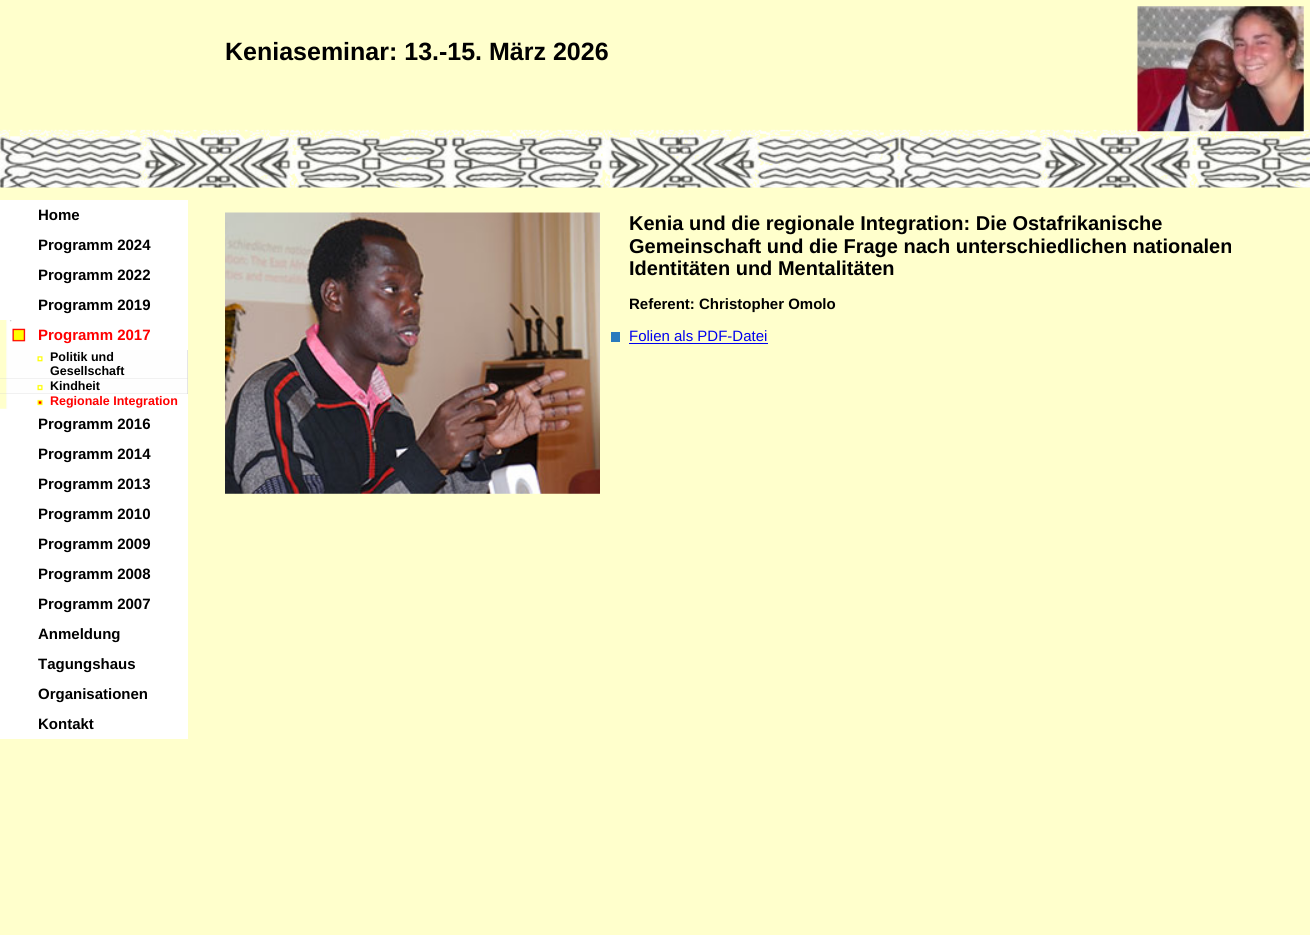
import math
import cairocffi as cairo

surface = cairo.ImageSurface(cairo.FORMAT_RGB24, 1310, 935)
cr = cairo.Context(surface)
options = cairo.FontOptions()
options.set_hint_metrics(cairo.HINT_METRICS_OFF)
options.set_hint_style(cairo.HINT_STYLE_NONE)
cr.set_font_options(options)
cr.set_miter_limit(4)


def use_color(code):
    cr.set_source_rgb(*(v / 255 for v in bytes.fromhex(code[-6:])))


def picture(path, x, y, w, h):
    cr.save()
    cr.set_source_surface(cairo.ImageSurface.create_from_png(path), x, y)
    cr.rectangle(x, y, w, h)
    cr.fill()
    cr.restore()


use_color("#ffffcc")
cr.paint()
picture("img1.png", 0, 129, 1310, 59)
cr.select_font_face("Liberation Sans", cairo.FONT_SLANT_NORMAL, cairo.FONT_WEIGHT_BOLD)
cr.set_font_size(25)
use_color("#000000")
cr.move_to(225, 60)
cr.show_text("Keniaseminar: 13.-15. März 2026")
picture("img2.png", 1137, 6, 167, 126)
use_color("#cccccc")
cr.rectangle(0, 350, 188, 44)
cr.fill()
use_color("#ffffff")
cr.rectangle(0, 200, 188, 120)
cr.fill()
cr.set_font_size(15)
use_color("#000000")
cr.move_to(38, 220)
cr.show_text("Home")
cr.move_to(38, 250)
cr.show_text("Programm 2024")
cr.move_to(38, 280)
cr.show_text("Programm 2022")
cr.move_to(38, 310)
cr.show_text("Programm 2019")
use_color("#ffffff")
cr.rectangle(7, 320, 181, 30)
cr.fill()
picture("img3.png", 0, 320, 26, 30)
use_color("#ff0000")
cr.move_to(38, 340)
cr.show_text("Programm 2017")
picture("img4.png", 0, 350, 188, 29)
cr.set_font_size(12.5)
use_color("#000000")
cr.move_to(50, 361)
cr.show_text("Politik und")
cr.move_to(50, 375)
cr.show_text("Gesellschaft")
picture("img5.png", 0, 379, 188, 15)
cr.move_to(50, 390)
cr.show_text("Kindheit")
use_color("#ffffff")
cr.rectangle(0, 394, 188, 345)
cr.fill()
picture("img6.png", 0, 394, 43, 15)
use_color("#ff0000")
cr.move_to(50, 405)
cr.show_text("Regionale Integration")
cr.set_font_size(15)
use_color("#000000")
cr.move_to(38, 429)
cr.show_text("Programm 2016")
cr.move_to(38, 459)
cr.show_text("Programm 2014")
cr.move_to(38, 489)
cr.show_text("Programm 2013")
cr.move_to(38, 519)
cr.show_text("Programm 2010")
cr.move_to(38, 549)
cr.show_text("Programm 2009")
cr.move_to(38, 579)
cr.show_text("Programm 2008")
cr.move_to(38, 609)
cr.show_text("Programm 2007")
cr.move_to(38, 639)
cr.show_text("Anmeldung")
cr.move_to(38, 669)
cr.show_text("Tagungshaus")
cr.move_to(38, 699)
cr.show_text("Organisationen")
cr.move_to(38, 729)
cr.show_text("Kontakt")
picture("img7.png", 225, 212, 375, 282)
cr.set_font_size(20)
cr.move_to(629, 230)
cr.show_text("Kenia und die regionale Integration: Die Ostafrikanische")
cr.move_to(629, 253)
cr.show_text("Gemeinschaft und die Frage nach unterschiedlichen nationalen")
cr.move_to(629, 275)
cr.show_text("Identitäten und Mentalitäten")
cr.set_font_size(15)
cr.move_to(629, 309)
cr.show_text("Referent: Christopher Omolo")
use_color("#2a7abd")
cr.rectangle(611, 332, 9, 10)
cr.fill()
cr.select_font_face("Liberation Sans")
use_color("#0000ee")
cr.move_to(629, 341)
cr.show_text("Folien als PDF-Datei")
cr.rectangle(629, 343, 139, 1)
cr.fill()
surface.write_to_png("result.png")
